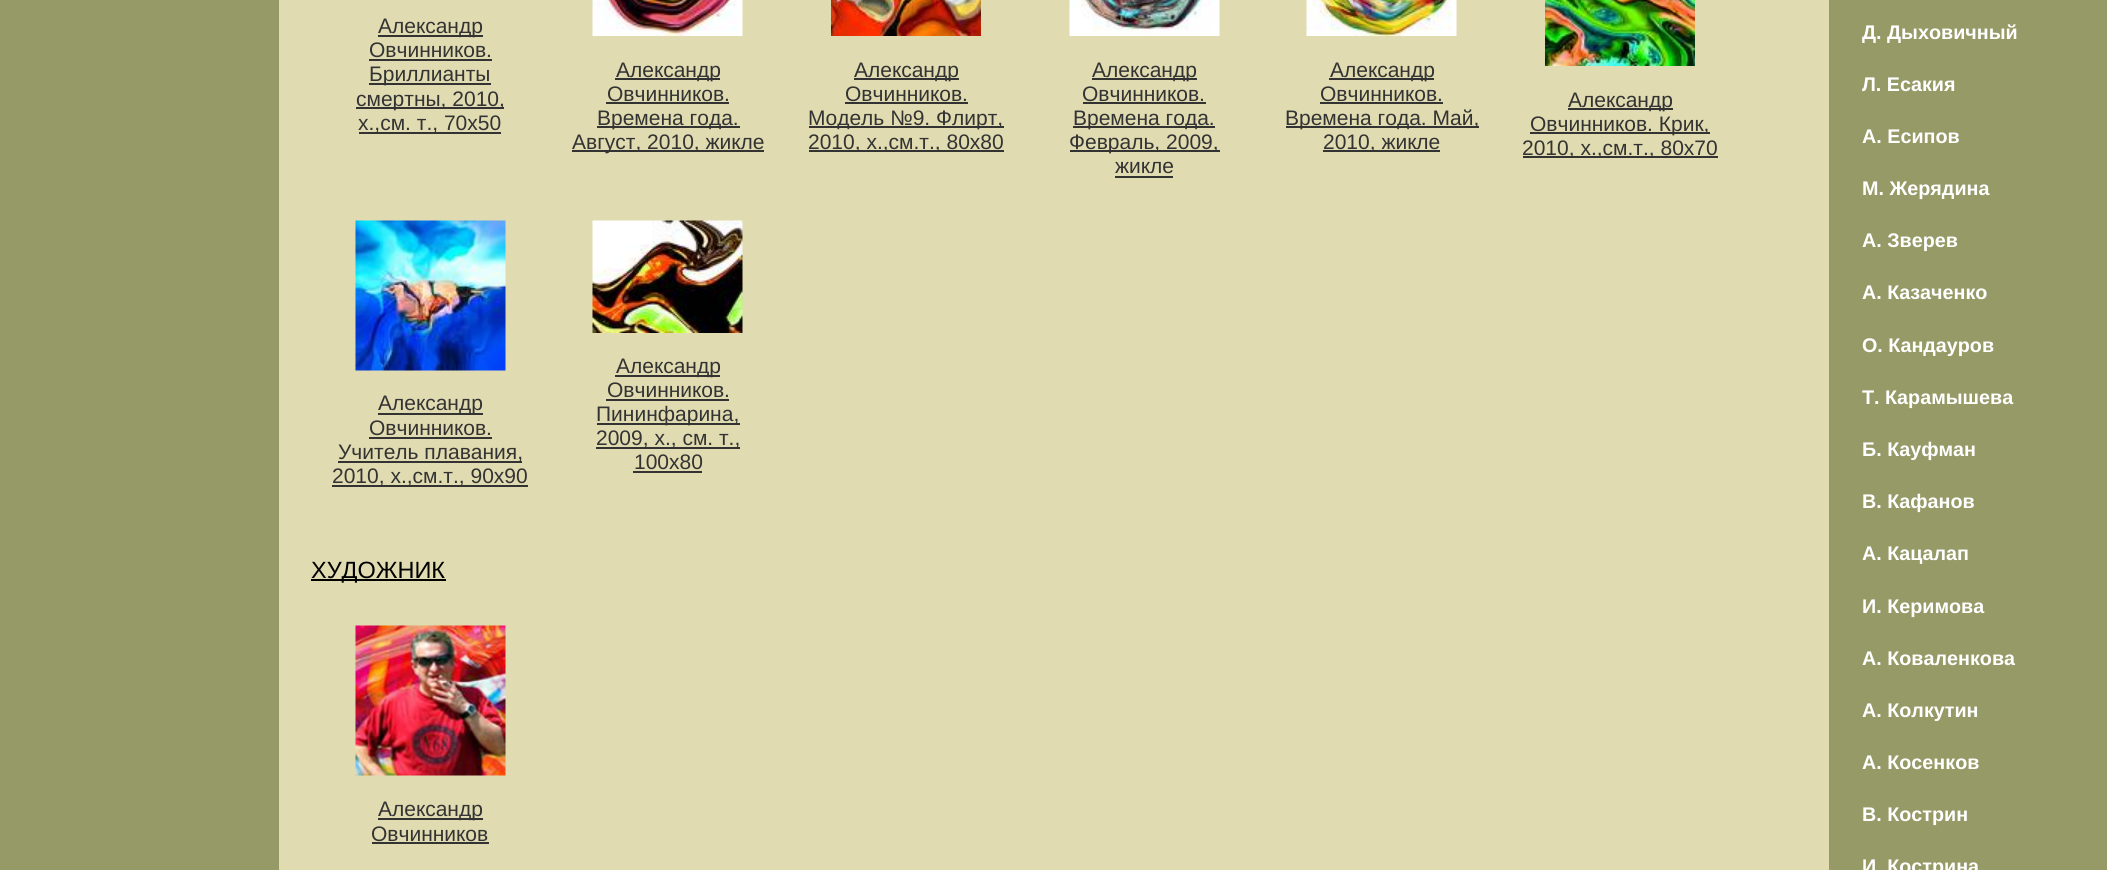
import math
import cairocffi as cairo

surface = cairo.ImageSurface(cairo.FORMAT_RGB24, 2107, 870)
cr = cairo.Context(surface)
options = cairo.FontOptions()
options.set_hint_metrics(cairo.HINT_METRICS_OFF)
options.set_hint_style(cairo.HINT_STYLE_NONE)
cr.set_font_options(options)
cr.set_miter_limit(4)


def use_color(code):
    cr.set_source_rgb(*(v / 255 for v in bytes.fromhex(code[-6:])))


def picture(path, x, y, w, h):
    cr.save()
    cr.set_source_surface(cairo.ImageSurface.create_from_png(path), x, y)
    cr.rectangle(x, y, w, h)
    cr.fill()
    cr.restore()


use_color("#969a66")
cr.paint()
use_color("#e0dbb0")
cr.rectangle(279, 0, 1550, 870)
cr.fill()
use_color("#333333")
cr.rectangle(378, 35, 105, 2)
cr.fill()
cr.select_font_face("Liberation Sans")
cr.set_font_size(21)
cr.move_to(378, 33)
cr.show_text("Александр")
cr.move_to(369, 57)
cr.show_text("Овчинников.")
cr.rectangle(369, 59, 123, 2)
cr.fill()
cr.rectangle(369, 83, 122, 2)
cr.fill()
cr.move_to(369, 81)
cr.show_text("Бриллианты")
cr.rectangle(356, 107, 148, 2)
cr.fill()
cr.move_to(356, 106)
cr.show_text("смертны, 2010,")
cr.rectangle(359, 132, 142, 2)
cr.fill()
cr.move_to(358, 130)
cr.show_text("х.,см. т., 70х50")
picture("img1.png", 592, 0, 151, 36)
cr.rectangle(615, 78, 105, 2)
cr.fill()
cr.move_to(616, 77)
cr.show_text("Александр")
cr.move_to(607, 101)
cr.show_text("Овчинников.")
cr.rectangle(606, 102, 123, 2)
cr.fill()
cr.rectangle(597, 126, 143, 2)
cr.fill()
cr.move_to(597, 125)
cr.show_text("Времена года.")
cr.rectangle(572, 150, 192, 2)
cr.fill()
cr.move_to(572, 149)
cr.show_text("Август, 2010, жикле")
picture("img2.png", 831, 0, 150, 36)
cr.rectangle(854, 78, 105, 2)
cr.fill()
cr.move_to(854, 77)
cr.show_text("Александр")
cr.move_to(845, 101)
cr.show_text("Овчинников.")
cr.rectangle(845, 102, 123, 2)
cr.fill()
cr.rectangle(809, 126, 195, 2)
cr.fill()
cr.move_to(808, 125)
cr.show_text("Модель №9. Флирт,")
cr.rectangle(809, 150, 195, 2)
cr.fill()
cr.move_to(808, 149)
cr.show_text("2010, х.,см.т., 80х80")
picture("img3.png", 1069, 0, 151, 36)
cr.rectangle(1092, 78, 105, 2)
cr.fill()
cr.move_to(1092, 77)
cr.show_text("Александр")
cr.move_to(1082, 101)
cr.show_text("Овчинников.")
cr.rectangle(1083, 102, 123, 2)
cr.fill()
cr.rectangle(1073, 126, 142, 2)
cr.fill()
cr.move_to(1073, 125)
cr.show_text("Времена года.")
cr.rectangle(1070, 150, 150, 2)
cr.fill()
cr.move_to(1069, 149)
cr.show_text("Февраль, 2009,")
cr.move_to(1115, 173)
cr.show_text("жикле")
cr.rectangle(1115, 176, 58, 2)
cr.fill()
picture("img4.png", 1306, 0, 151, 36)
cr.rectangle(1329, 78, 105, 2)
cr.fill()
cr.move_to(1330, 77)
cr.show_text("Александр")
cr.move_to(1320, 101)
cr.show_text("Овчинников.")
cr.rectangle(1320, 102, 123, 2)
cr.fill()
cr.rectangle(1286, 126, 193, 2)
cr.fill()
cr.move_to(1285, 125)
cr.show_text("Времена года. Май,")
cr.rectangle(1323, 150, 117, 2)
cr.fill()
cr.move_to(1323, 149)
cr.show_text("2010, жикле")
picture("img5.png", 1545, 0, 150, 66)
cr.rectangle(1568, 108, 105, 2)
cr.fill()
cr.move_to(1568, 107)
cr.show_text("Александр")
cr.rectangle(1530, 132, 180, 2)
cr.fill()
cr.move_to(1530, 131)
cr.show_text("Овчинников. Крик,")
cr.rectangle(1523, 156, 195, 2)
cr.fill()
cr.move_to(1522, 155)
cr.show_text("2010, х.,см.т., 80х70")
picture("img6.png", 355, 220, 151, 151)
cr.rectangle(378, 413, 105, 2)
cr.fill()
cr.move_to(378, 410)
cr.show_text("Александр")
cr.move_to(369, 435)
cr.show_text("Овчинников.")
cr.rectangle(369, 437, 123, 2)
cr.fill()
cr.rectangle(338, 461, 184, 2)
cr.fill()
cr.move_to(338, 459)
cr.show_text("Учитель плавания,")
cr.rectangle(332, 485, 196, 2)
cr.fill()
cr.move_to(332, 483)
cr.show_text("2010, х.,см.т., 90х90")
picture("img7.png", 592, 220, 151, 113)
cr.rectangle(615, 375, 105, 2)
cr.fill()
cr.move_to(616, 373)
cr.show_text("Александр")
cr.move_to(607, 397)
cr.show_text("Овчинников.")
cr.rectangle(606, 399, 123, 2)
cr.fill()
cr.rectangle(597, 423, 143, 2)
cr.fill()
cr.move_to(596, 421)
cr.show_text("Пининфарина,")
cr.rectangle(596, 447, 144, 2)
cr.fill()
cr.move_to(596, 445)
cr.show_text("2009, х., см. т.,")
cr.move_to(634, 469)
cr.show_text("100х80")
cr.rectangle(633, 471, 69, 2)
cr.fill()
use_color("#000000")
cr.rectangle(311, 579, 135, 2)
cr.fill()
cr.set_font_size(23.5)
cr.move_to(311, 578)
cr.show_text("ХУДОЖНИК")
picture("img8.png", 355, 625, 151, 151)
use_color("#333333")
cr.rectangle(378, 818, 105, 2)
cr.fill()
cr.set_font_size(21)
cr.move_to(378, 816)
cr.show_text("Александр")
cr.move_to(371, 841)
cr.show_text("Овчинников")
cr.rectangle(372, 842, 117, 2)
cr.fill()
cr.select_font_face("Liberation Sans", cairo.FONT_SLANT_NORMAL, cairo.FONT_WEIGHT_BOLD)
cr.set_font_size(19.75)
use_color("#ffffff")
cr.move_to(1862, 39)
cr.show_text("Д. Дыховичный")
cr.move_to(1862, 91)
cr.show_text("Л. Есакия")
cr.move_to(1862, 143)
cr.show_text("А. Есипов")
cr.move_to(1862, 195)
cr.show_text("М. Жерядина")
cr.move_to(1862, 247)
cr.show_text("А. Зверев")
cr.move_to(1862, 299)
cr.show_text("А. Казаченко")
cr.move_to(1862, 352)
cr.show_text("О. Кандауров")
cr.move_to(1862, 404)
cr.show_text("Т. Карамышева")
cr.move_to(1862, 456)
cr.show_text("Б. Кауфман")
cr.move_to(1862, 508)
cr.show_text("В. Кафанов")
cr.move_to(1862, 560)
cr.show_text("А. Кацалап")
cr.move_to(1862, 613)
cr.show_text("И. Керимова")
cr.move_to(1862, 665)
cr.show_text("А. Коваленкова")
cr.move_to(1862, 717)
cr.show_text("А. Колкутин")
cr.move_to(1862, 769)
cr.show_text("А. Косенков")
cr.move_to(1862, 821)
cr.show_text("В. Кострин")
cr.move_to(1862, 873)
cr.show_text("И. Кострина")
surface.write_to_png("result.png")
